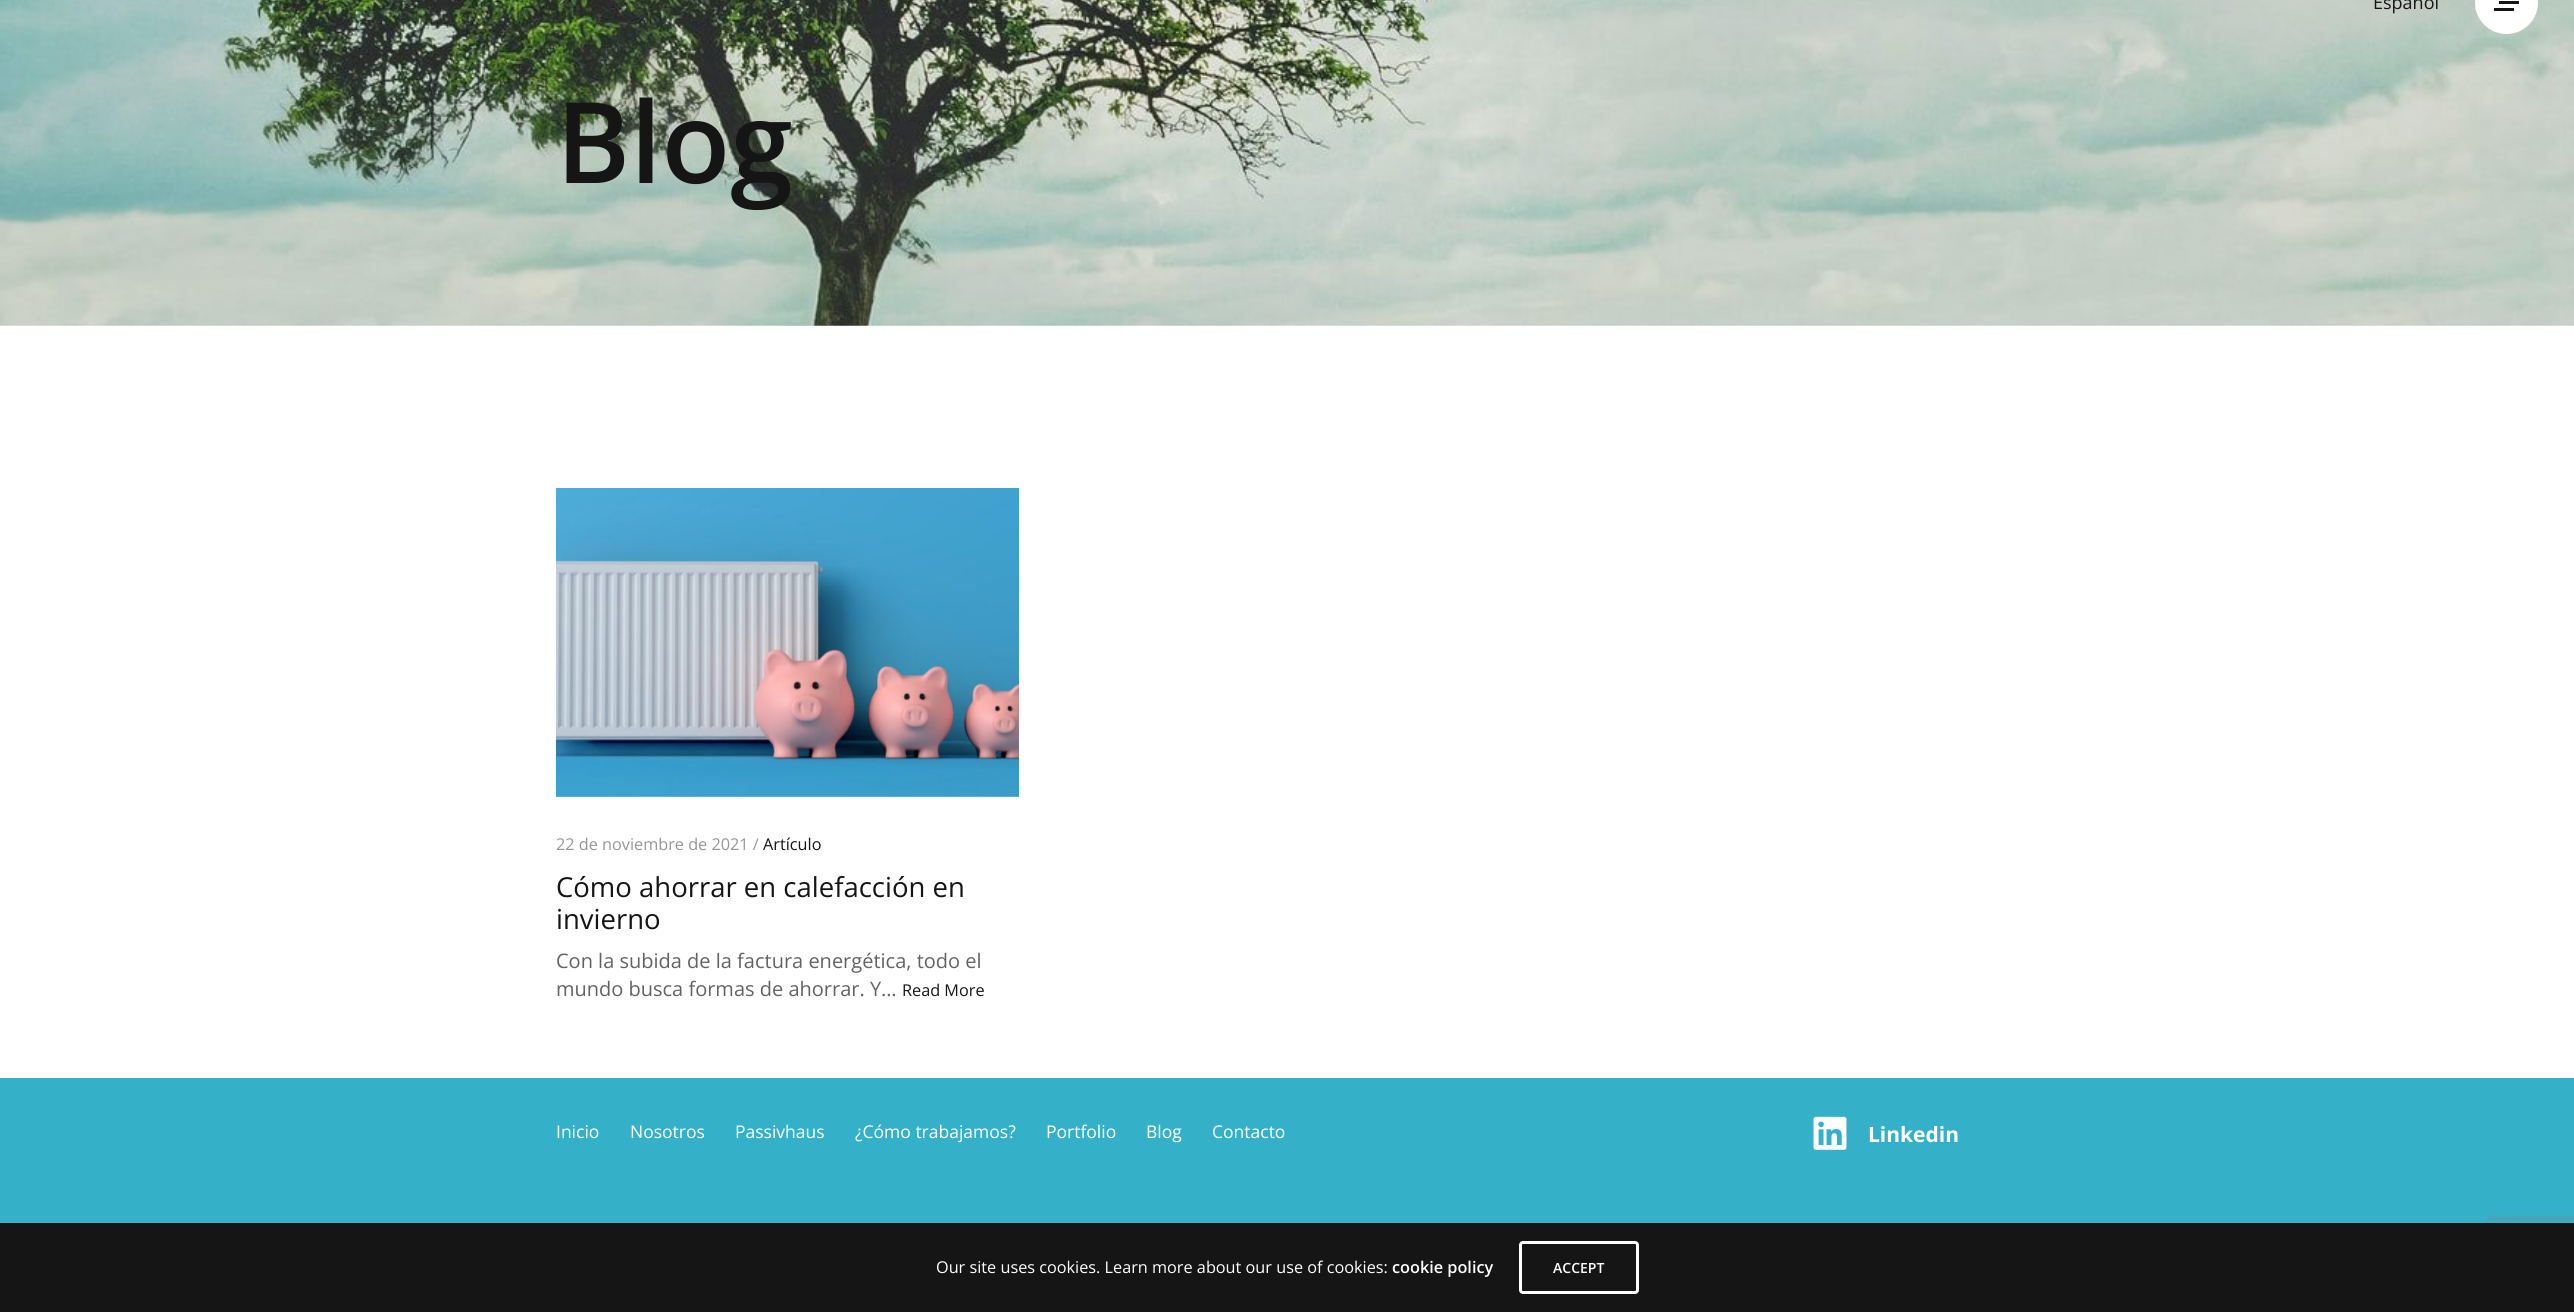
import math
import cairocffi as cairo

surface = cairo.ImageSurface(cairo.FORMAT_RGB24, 2574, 1312)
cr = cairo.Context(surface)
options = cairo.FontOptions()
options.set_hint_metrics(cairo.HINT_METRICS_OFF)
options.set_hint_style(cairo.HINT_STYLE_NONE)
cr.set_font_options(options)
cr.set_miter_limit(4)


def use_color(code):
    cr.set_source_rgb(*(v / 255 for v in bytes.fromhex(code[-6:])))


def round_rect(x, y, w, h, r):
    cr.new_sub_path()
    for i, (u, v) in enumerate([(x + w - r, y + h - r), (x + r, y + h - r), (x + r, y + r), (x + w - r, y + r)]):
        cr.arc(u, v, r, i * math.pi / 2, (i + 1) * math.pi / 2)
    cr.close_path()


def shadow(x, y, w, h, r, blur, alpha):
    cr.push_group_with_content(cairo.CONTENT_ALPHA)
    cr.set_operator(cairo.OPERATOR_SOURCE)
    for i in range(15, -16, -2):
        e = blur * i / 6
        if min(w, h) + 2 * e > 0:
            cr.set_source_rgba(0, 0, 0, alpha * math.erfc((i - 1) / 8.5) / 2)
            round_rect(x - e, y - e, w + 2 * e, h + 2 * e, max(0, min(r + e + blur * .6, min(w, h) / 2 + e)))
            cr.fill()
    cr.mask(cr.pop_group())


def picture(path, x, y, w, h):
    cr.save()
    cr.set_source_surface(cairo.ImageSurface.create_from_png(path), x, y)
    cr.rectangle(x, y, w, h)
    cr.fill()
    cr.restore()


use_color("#ffffff")
cr.paint()
picture("img1.png", 0, 0, 2574, 326)
cr.select_font_face("Open Sans")
cr.set_font_size(18)
use_color("#151515")
cr.move_to(2373, 9)
cr.show_text("Español")
use_color("#ffffff")
cr.new_path()
cr.arc(2506.5, 2.5, 31.5, 0, 2 * math.pi)
cr.fill()
use_color("#151515")
cr.rectangle(2499, 1, 20, 3)
cr.fill()
cr.rectangle(2494, 8, 20, 3)
cr.fill()
cr.select_font_face("Open Sans SemiBold")
cr.set_font_size(112.5)
cr.move_to(556, 183)
cr.show_text("Blog")
picture("img2.png", 556, 488, 463, 309)
cr.select_font_face("Open Sans")
cr.set_font_size(16.25)
use_color("#969696")
cr.move_to(556, 850)
cr.show_text("22 de noviembre de 2021 /")
use_color("#151515")
cr.move_to(763, 850)
cr.show_text("Artículo")
cr.set_font_size(27.5)
cr.move_to(556, 897)
cr.show_text("Cómo ahorrar en calefacción en")
cr.move_to(556, 929)
cr.show_text("invierno")
cr.set_font_size(20)
use_color("#636363")
cr.move_to(556, 968)
cr.show_text("Con la subida de la factura energética, todo el")
cr.move_to(556, 996)
cr.show_text("mundo busca formas de ahorrar. Y…")
cr.set_font_size(16.25)
use_color("#151515")
cr.move_to(902, 996)
cr.show_text("Read More")
use_color("#35b0c9")
cr.rectangle(0, 1078, 2574, 145)
cr.fill()
cr.set_font_size(17.5)
use_color("#ffffff")
cr.move_to(556, 1138)
cr.show_text("Inicio")
cr.move_to(630, 1138)
cr.show_text("Nosotros")
cr.move_to(735, 1138)
cr.show_text("Passivhaus")
cr.move_to(855, 1138)
cr.show_text("¿Cómo trabajamos?")
cr.move_to(1046, 1138)
cr.show_text("Portfolio")
cr.move_to(1146, 1138)
cr.show_text("Blog")
cr.move_to(1212, 1138)
cr.show_text("Contacto")
picture("img3.png", 1813, 1116, 34, 34)
cr.select_font_face("Open Sans", cairo.FONT_SLANT_NORMAL, cairo.FONT_WEIGHT_BOLD)
cr.set_font_size(21)
cr.move_to(1868, 1142)
cr.show_text("Linkedin")
cr.save()
cr.set_fill_rule(cairo.FILL_RULE_EVEN_ODD)
cr.new_path()
cr.move_to(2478, 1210)
cr.line_to(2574, 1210)
cr.line_to(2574, 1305)
cr.line_to(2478, 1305)
cr.close_path()
cr.move_to(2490.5, 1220)
cr.line_to(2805.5, 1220)
cr.curve_to(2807, 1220, 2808, 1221, 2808, 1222.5)
cr.line_to(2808, 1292.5)
cr.curve_to(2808, 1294, 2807, 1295, 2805.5, 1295)
cr.line_to(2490.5, 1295)
cr.curve_to(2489, 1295, 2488, 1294, 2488, 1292.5)
cr.line_to(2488, 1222.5)
cr.curve_to(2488, 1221, 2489, 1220, 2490.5, 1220)
cr.close_path()
cr.clip()
use_color("#808080")
shadow(2488, 1220, 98, 75, 2.5, 3, 1)
cr.restore()
use_color("#151515")
cr.rectangle(0, 1223, 2574, 89)
cr.fill()
cr.select_font_face("Open Sans")
cr.set_font_size(16.25)
use_color("#ffffff")
cr.move_to(936, 1273)
cr.show_text("Our site uses cookies. Learn more about our use of cookies:")
cr.select_font_face("Open Sans SemiBold")
cr.move_to(1392, 1273)
cr.show_text("cookie policy")
round_rect(1520.5, 1242.5, 117, 50, 2.5)
cr.set_line_width(3)
cr.stroke()
cr.set_font_size(14)
cr.move_to(1553, 1273)
cr.show_text("ACCEPT")
surface.write_to_png("result.png")
